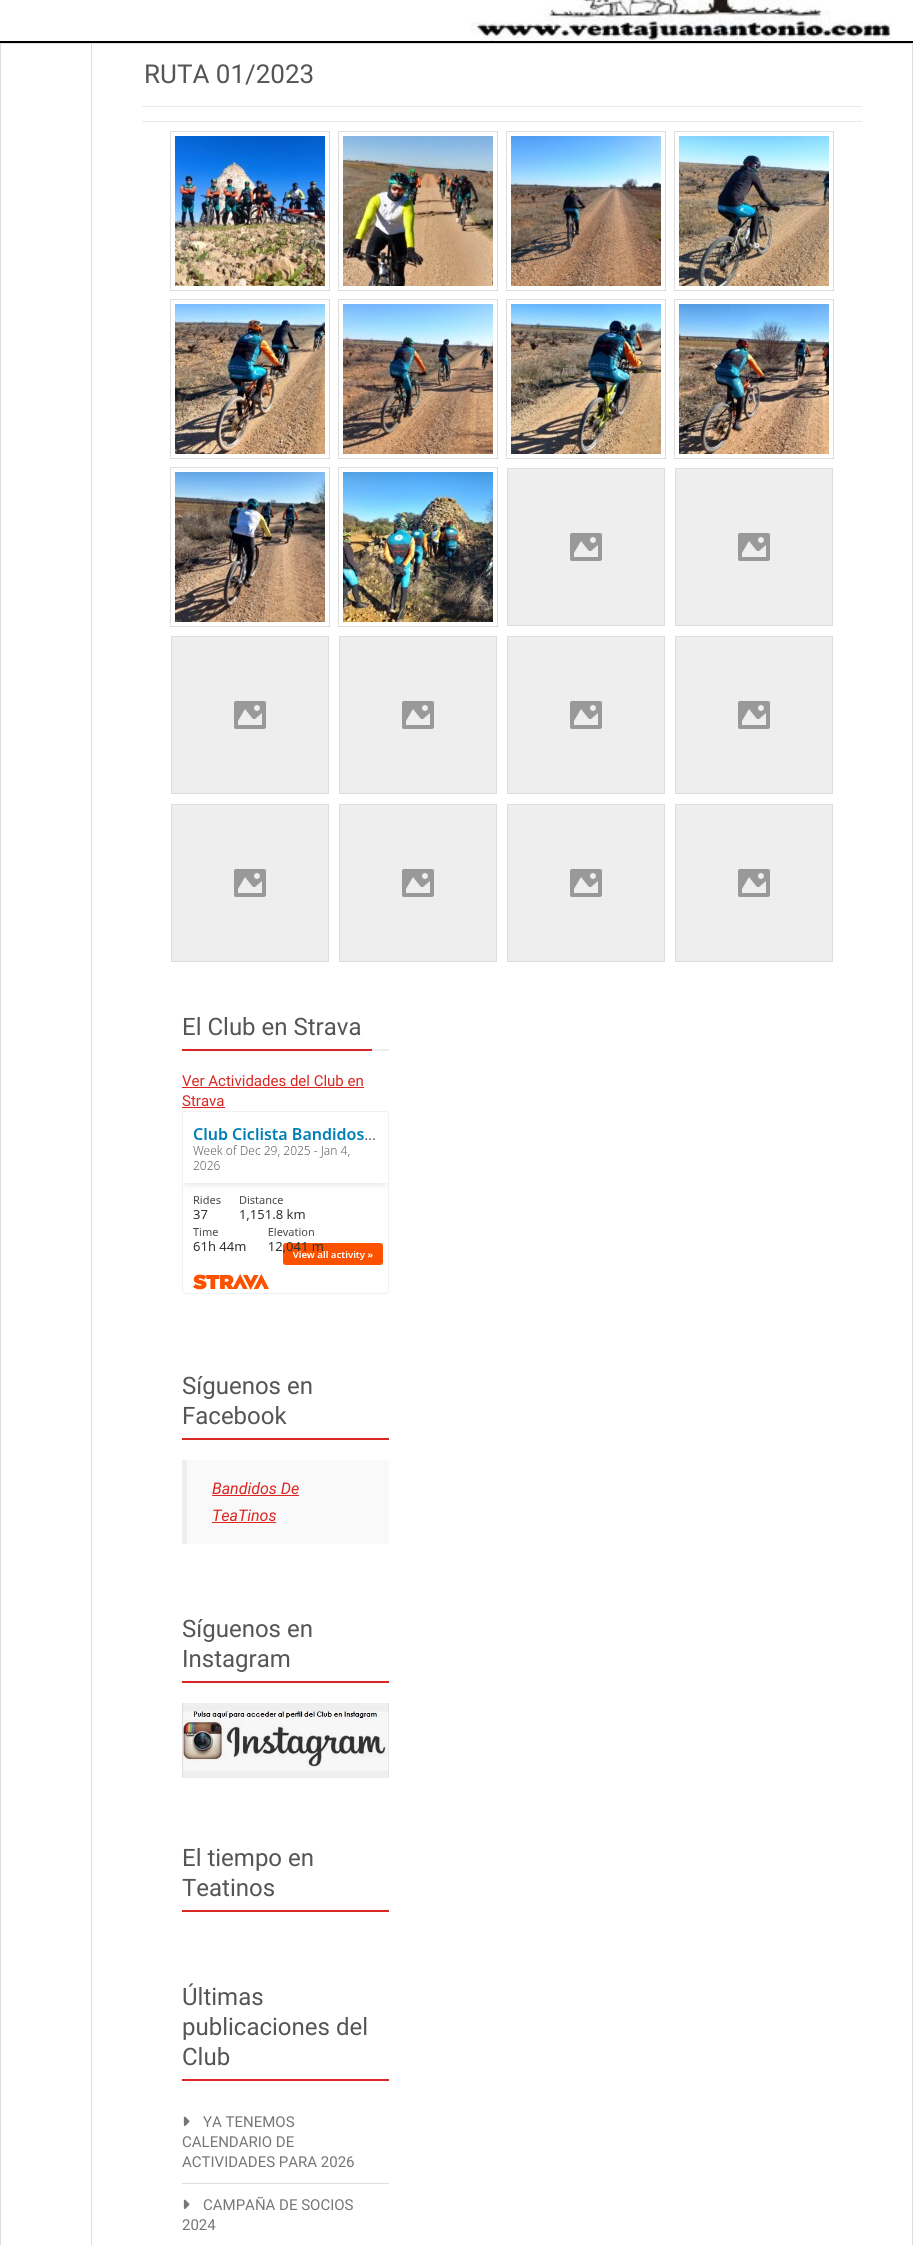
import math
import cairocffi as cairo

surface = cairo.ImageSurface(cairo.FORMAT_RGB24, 913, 2245)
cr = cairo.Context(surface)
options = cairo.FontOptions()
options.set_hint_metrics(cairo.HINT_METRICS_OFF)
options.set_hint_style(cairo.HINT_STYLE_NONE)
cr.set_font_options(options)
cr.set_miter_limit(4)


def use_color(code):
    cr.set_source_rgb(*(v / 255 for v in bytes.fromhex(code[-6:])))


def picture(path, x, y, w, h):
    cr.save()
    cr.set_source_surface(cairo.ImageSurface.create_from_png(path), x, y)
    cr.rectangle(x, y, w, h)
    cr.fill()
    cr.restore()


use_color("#ffffff")
cr.paint()
picture("img1.png", 470, 0, 422, 41)
use_color("#000000")
cr.rectangle(0, 41, 913, 2)
cr.fill()
use_color("#dddddd")
cr.rectangle(0, 43, 913, 1)
cr.fill()
cr.rectangle(912, 43, 1, 2202)
cr.fill()
cr.rectangle(0, 43, 1, 2202)
cr.fill()
cr.rectangle(91, 43, 1, 2202)
cr.fill()
cr.select_font_face("Roboto")
cr.set_font_size(26)
use_color("#555555")
cr.move_to(144, 83)
cr.show_text("RUTA 01/2023")
use_color("#ebeaea")
cr.rectangle(142, 106, 720, 1)
cr.fill()
cr.rectangle(142, 121, 720, 1)
cr.fill()
cr.rectangle(170.5, 131.5, 159, 159)
use_color("#dddddd")
cr.set_line_width(1)
cr.stroke()
picture("img2.png", 175, 136, 150, 150)
cr.rectangle(338.5, 131.5, 159, 159)
cr.stroke()
picture("img3.png", 343, 136, 150, 150)
cr.rectangle(506.5, 131.5, 159, 159)
cr.stroke()
picture("img4.png", 511, 136, 150, 150)
cr.rectangle(674.5, 131.5, 159, 159)
cr.stroke()
picture("img5.png", 679, 136, 150, 150)
cr.rectangle(170.5, 299.5, 159, 159)
cr.stroke()
picture("img6.png", 175, 304, 150, 150)
cr.rectangle(338.5, 299.5, 159, 159)
cr.stroke()
picture("img7.png", 343, 304, 150, 150)
cr.rectangle(506.5, 299.5, 159, 159)
cr.stroke()
picture("img8.png", 511, 304, 150, 150)
cr.rectangle(674.5, 299.5, 159, 159)
cr.stroke()
picture("img9.png", 679, 304, 150, 150)
cr.rectangle(170.5, 467.5, 159, 159)
cr.stroke()
picture("img10.png", 175, 472, 150, 150)
cr.rectangle(338.5, 467.5, 159, 159)
cr.stroke()
picture("img11.png", 343, 472, 150, 150)
use_color("#eeeeee")
cr.rectangle(507.5, 468.5, 157, 157)
cr.fill_preserve()
use_color("#dddddd")
cr.stroke()
picture("img12.png", 570, 533, 32, 28)
use_color("#eeeeee")
cr.rectangle(675.5, 468.5, 157, 157)
cr.fill_preserve()
use_color("#dddddd")
cr.stroke()
picture("img13.png", 738, 533, 32, 28)
use_color("#eeeeee")
cr.rectangle(171.5, 636.5, 157, 157)
cr.fill_preserve()
use_color("#dddddd")
cr.stroke()
picture("img14.png", 234, 701, 32, 28)
use_color("#eeeeee")
cr.rectangle(339.5, 636.5, 157, 157)
cr.fill_preserve()
use_color("#dddddd")
cr.stroke()
picture("img12.png", 402, 701, 32, 28)
use_color("#eeeeee")
cr.rectangle(507.5, 636.5, 157, 157)
cr.fill_preserve()
use_color("#dddddd")
cr.stroke()
picture("img12.png", 570, 701, 32, 28)
use_color("#eeeeee")
cr.rectangle(675.5, 636.5, 157, 157)
cr.fill_preserve()
use_color("#dddddd")
cr.stroke()
picture("img13.png", 738, 701, 32, 28)
use_color("#eeeeee")
cr.rectangle(171.5, 804.5, 157, 157)
cr.fill_preserve()
use_color("#dddddd")
cr.stroke()
picture("img14.png", 234, 869, 32, 28)
use_color("#eeeeee")
cr.rectangle(339.5, 804.5, 157, 157)
cr.fill_preserve()
use_color("#dddddd")
cr.stroke()
picture("img12.png", 402, 869, 32, 28)
use_color("#eeeeee")
cr.rectangle(507.5, 804.5, 157, 157)
cr.fill_preserve()
use_color("#dddddd")
cr.stroke()
picture("img12.png", 570, 869, 32, 28)
use_color("#eeeeee")
cr.rectangle(675.5, 804.5, 157, 157)
cr.fill_preserve()
use_color("#dddddd")
cr.stroke()
picture("img13.png", 738, 869, 32, 28)
use_color("#eeeeee")
cr.rectangle(372, 1049, 17, 2)
cr.fill()
use_color("#db2723")
cr.rectangle(182, 1049, 190, 2)
cr.fill()
cr.set_font_size(24)
use_color("#555555")
cr.move_to(182, 1035)
cr.show_text("El Club en Strava")
cr.set_font_size(15)
use_color("#db2723")
cr.move_to(182, 1086)
cr.show_text("Ver Actividades del Club en")
cr.rectangle(182, 1087, 182, 1)
cr.fill()
cr.move_to(182, 1106)
cr.show_text("Strava")
cr.rectangle(182, 1107, 43, 1)
cr.fill()
picture("img15.png", 182, 1111, 207, 183)
cr.rectangle(182, 1438, 207, 2)
cr.fill()
cr.set_font_size(24)
use_color("#555555")
cr.move_to(182, 1394)
cr.show_text("Síguenos en")
cr.move_to(182, 1424)
cr.show_text("Facebook")
use_color("#f9f9f9")
cr.rectangle(187, 1460, 202, 84)
cr.fill()
use_color("#eeeeee")
cr.rectangle(182, 1460, 5, 84)
cr.fill()
cr.select_font_face("Roboto", cairo.FONT_SLANT_ITALIC)
cr.set_font_size(16)
use_color("#db2723")
cr.move_to(212, 1494)
cr.show_text("Bandidos De")
cr.rectangle(212, 1495, 87, 1)
cr.fill()
cr.move_to(212, 1521)
cr.show_text("TeaTinos")
cr.rectangle(212, 1522, 64, 1)
cr.fill()
cr.rectangle(182, 1681, 207, 2)
cr.fill()
cr.select_font_face("Roboto")
cr.set_font_size(24)
use_color("#555555")
cr.move_to(182, 1637)
cr.show_text("Síguenos en")
cr.move_to(182, 1667)
cr.show_text("Instagram")
picture("img16.png", 182, 1703, 207, 75)
use_color("#db2723")
cr.rectangle(182, 1910, 207, 2)
cr.fill()
use_color("#555555")
cr.move_to(182, 1866)
cr.show_text("El tiempo en")
cr.move_to(182, 1896)
cr.show_text("Teatinos")
use_color("#db2723")
cr.rectangle(182, 2079, 207, 2)
cr.fill()
use_color("#555555")
cr.move_to(182, 2005)
cr.show_text("Últimas")
cr.move_to(182, 2035)
cr.show_text("publicaciones del")
cr.move_to(182, 2065)
cr.show_text("Club")
use_color("#dedede")
cr.rectangle(182, 2183, 207, 1)
cr.fill()
picture("img17.png", 183, 2116, 7, 10)
cr.set_font_size(15)
use_color("#767676")
cr.move_to(203, 2127)
cr.show_text("YA TENEMOS")
cr.move_to(182, 2147)
cr.show_text("CALENDARIO DE")
cr.move_to(182, 2167)
cr.show_text("ACTIVIDADES PARA 2026")
picture("img17.png", 183, 2199, 7, 10)
cr.move_to(203, 2210)
cr.show_text("CAMPAÑA DE SOCIOS")
cr.move_to(182, 2230)
cr.show_text("2024")
surface.write_to_png("result.png")
